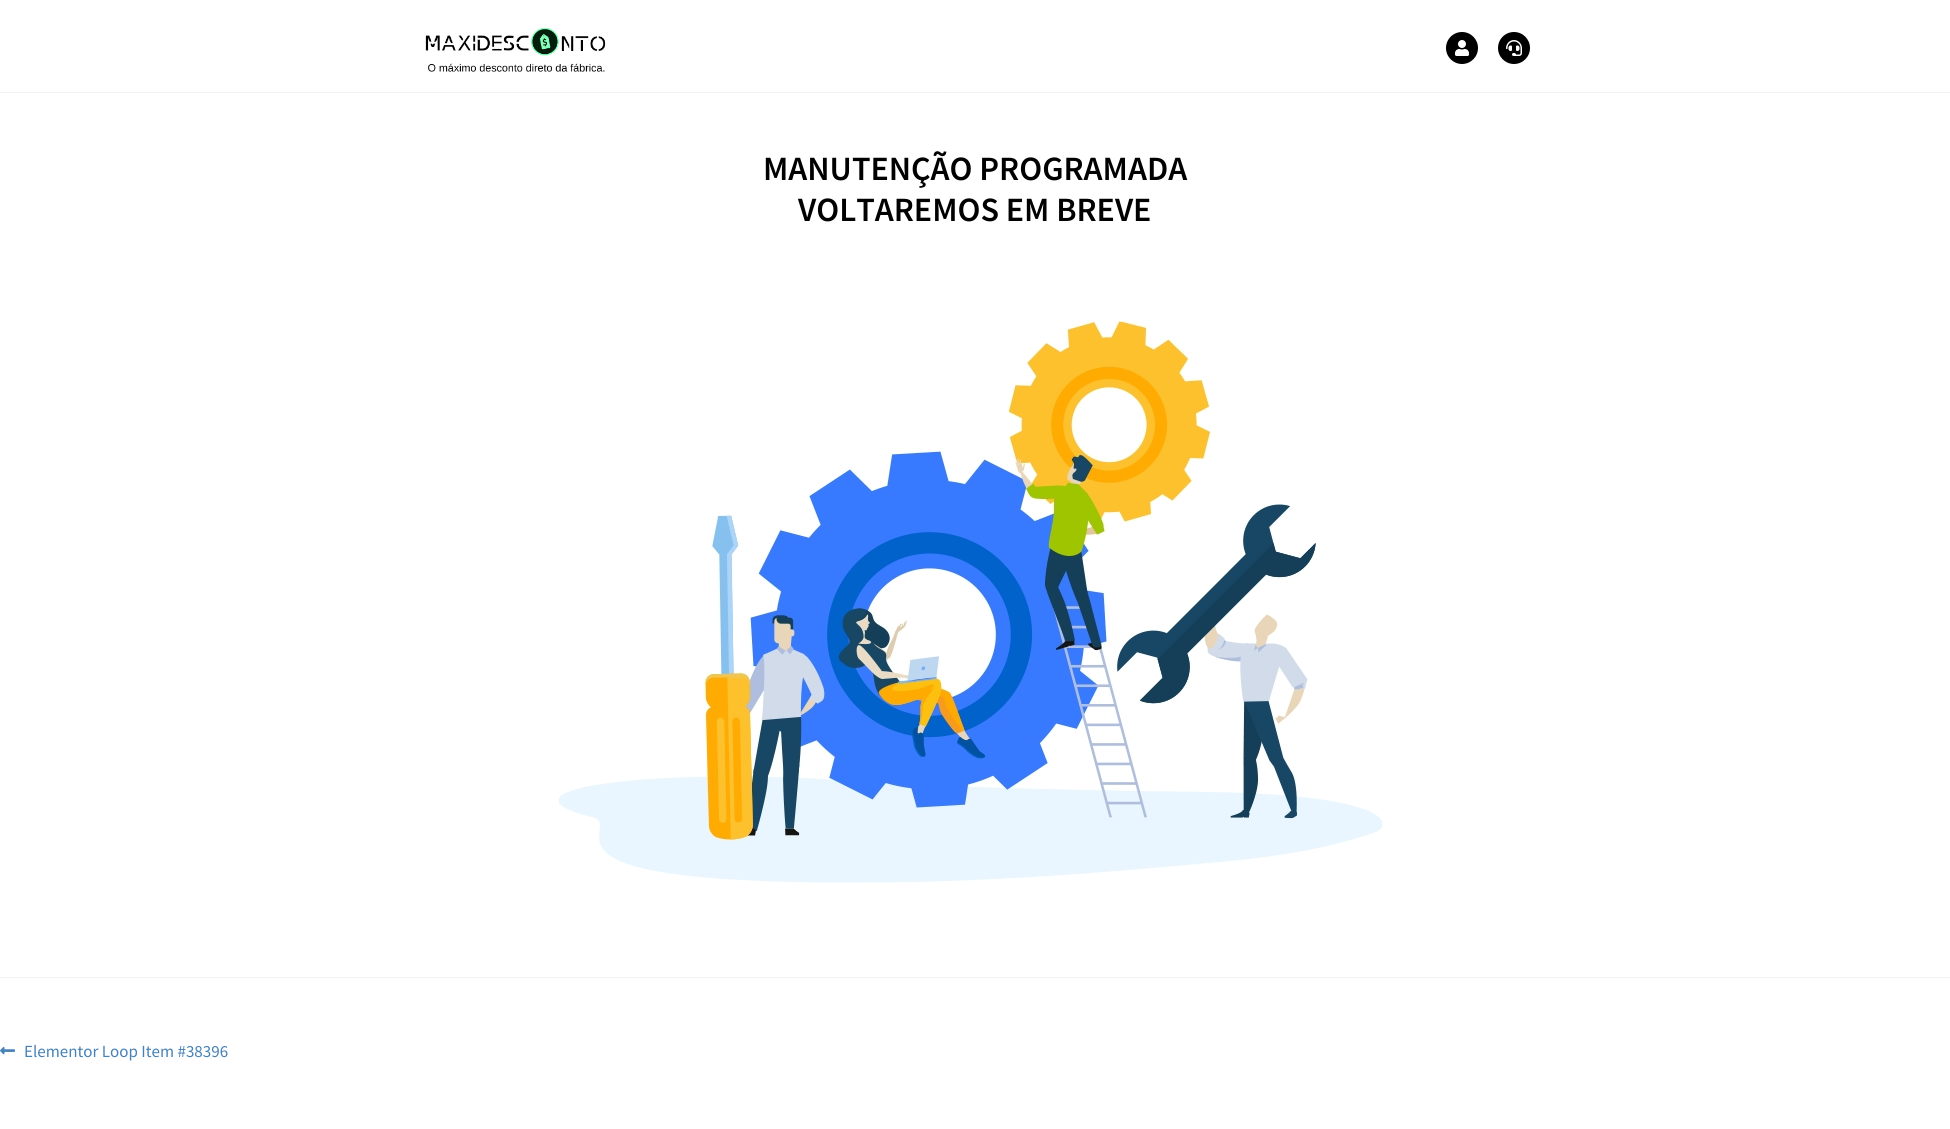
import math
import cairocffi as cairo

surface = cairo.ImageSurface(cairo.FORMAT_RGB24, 1950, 1129)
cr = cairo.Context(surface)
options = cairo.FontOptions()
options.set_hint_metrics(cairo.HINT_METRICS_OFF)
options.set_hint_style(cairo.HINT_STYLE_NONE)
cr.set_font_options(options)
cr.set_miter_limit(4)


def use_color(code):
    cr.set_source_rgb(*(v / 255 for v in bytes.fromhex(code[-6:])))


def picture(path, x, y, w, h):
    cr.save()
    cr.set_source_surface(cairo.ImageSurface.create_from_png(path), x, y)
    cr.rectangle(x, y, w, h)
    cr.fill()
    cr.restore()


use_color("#ffffff")
cr.paint()
picture("img1.png", 425, 28, 181, 44)
use_color("#000000")
cr.arc(1462, 48, 16, 0, 2 * math.pi)
cr.fill()
picture("img2.png", 1455, 40, 14, 16)
cr.arc(1514, 48, 16, 0, 2 * math.pi)
cr.fill()
picture("img3.png", 1506, 40, 16, 16)
use_color("#f2f2f2")
cr.rectangle(0, 92, 1950, 1)
cr.fill()
cr.select_font_face("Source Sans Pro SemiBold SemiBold")
cr.set_font_size(34)
use_color("#000000")
cr.move_to(763, 180)
cr.show_text("MANUTENÇÃO PROGRAMADA")
cr.move_to(798, 221)
cr.show_text("VOLTAREMOS EM BREVE")
picture("img4.png", 495, 250, 960, 693)
use_color("#f2f2f2")
cr.rectangle(0, 977, 1950, 1)
cr.fill()
picture("img5.png", 0, 1047, 15, 8)
cr.select_font_face("Source Sans Pro")
cr.set_font_size(17)
use_color("#4681b7")
cr.move_to(24, 1057)
cr.show_text("Elementor Loop Item #38396")
surface.write_to_png("result.png")
